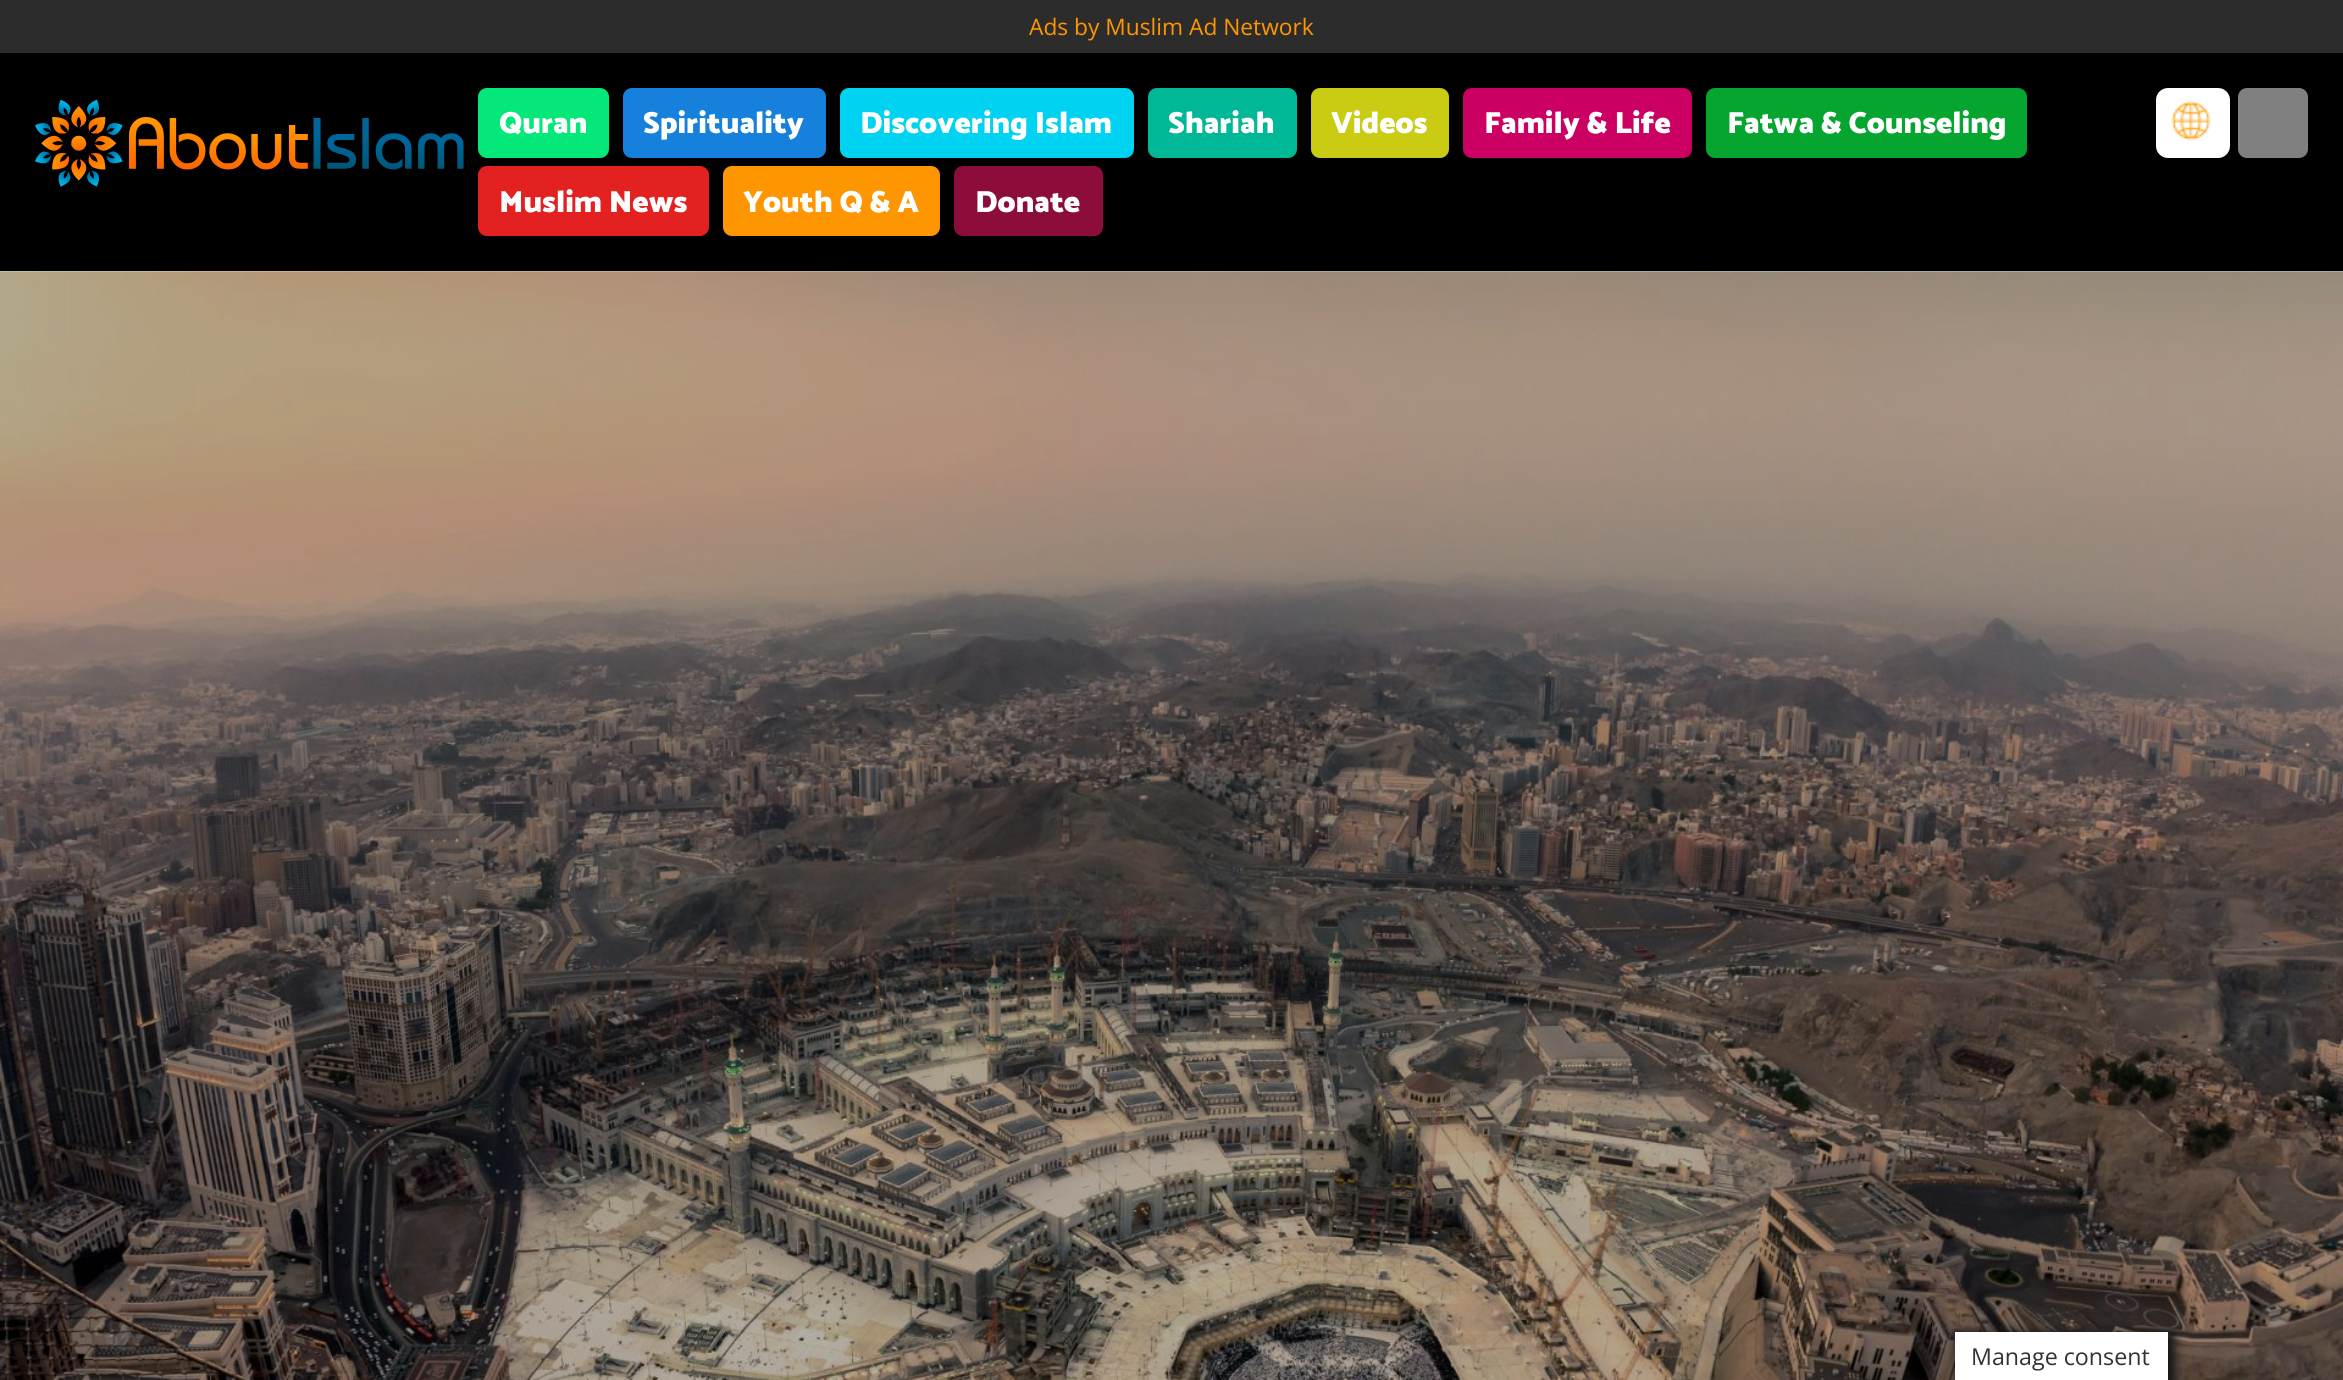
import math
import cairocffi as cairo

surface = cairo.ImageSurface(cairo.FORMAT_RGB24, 2343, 1380)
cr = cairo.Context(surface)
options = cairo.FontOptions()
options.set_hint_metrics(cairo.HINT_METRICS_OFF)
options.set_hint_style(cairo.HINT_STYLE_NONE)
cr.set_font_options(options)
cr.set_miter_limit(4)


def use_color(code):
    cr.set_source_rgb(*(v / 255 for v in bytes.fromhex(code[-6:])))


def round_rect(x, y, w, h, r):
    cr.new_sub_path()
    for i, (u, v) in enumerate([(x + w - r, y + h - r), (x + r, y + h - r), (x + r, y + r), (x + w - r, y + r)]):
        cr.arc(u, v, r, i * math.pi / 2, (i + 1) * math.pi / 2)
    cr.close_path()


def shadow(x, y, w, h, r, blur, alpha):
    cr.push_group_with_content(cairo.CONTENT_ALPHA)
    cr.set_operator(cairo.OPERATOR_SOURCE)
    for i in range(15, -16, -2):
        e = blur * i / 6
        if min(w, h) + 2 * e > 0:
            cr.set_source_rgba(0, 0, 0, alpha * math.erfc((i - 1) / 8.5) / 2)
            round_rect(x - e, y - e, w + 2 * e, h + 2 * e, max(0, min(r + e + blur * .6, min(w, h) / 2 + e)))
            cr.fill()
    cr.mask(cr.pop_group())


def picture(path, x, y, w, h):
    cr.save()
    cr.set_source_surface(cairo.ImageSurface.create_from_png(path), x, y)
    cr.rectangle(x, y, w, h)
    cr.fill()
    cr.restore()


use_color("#ffffff")
cr.paint()
use_color("#2c2c2c")
cr.rectangle(0, 0, 2343, 53)
cr.fill()
cr.select_font_face("Open Sans")
cr.set_font_size(22.75)
use_color("#fe9601")
cr.move_to(1029, 35)
cr.show_text("Ads by Muslim Ad Network")
use_color("#000000")
cr.rectangle(0, 53, 2343, 218)
cr.fill()
picture("img1.png", 35, 100, 429, 87)
use_color("#04e879")
round_rect(478, 88, 131, 70, 9)
cr.fill()
cr.select_font_face("Catamaran Black")
cr.set_font_size(30.6)
use_color("#ffffff")
cr.move_to(499, 133)
cr.show_text("Quran")
use_color("#1680dd")
round_rect(623, 88, 203, 70, 9)
cr.fill()
use_color("#ffffff")
cr.move_to(643, 133)
cr.show_text("Spirituality")
use_color("#00d2f1")
round_rect(840, 88, 294, 70, 9)
cr.fill()
use_color("#ffffff")
cr.move_to(860, 133)
cr.show_text("Discovering Islam")
use_color("#00b796")
round_rect(1148, 88, 149, 70, 9)
cr.fill()
use_color("#ffffff")
cr.move_to(1168, 133)
cr.show_text("Shariah")
use_color("#cacc13")
round_rect(1311, 88, 138, 70, 9)
cr.fill()
use_color("#ffffff")
cr.move_to(1331, 133)
cr.show_text("Videos")
use_color("#cc0063")
round_rect(1463, 88, 229, 70, 9)
cr.fill()
use_color("#ffffff")
cr.move_to(1484, 133)
cr.show_text("Family & Life")
use_color("#06a52f")
round_rect(1706, 88, 321, 70, 9)
cr.fill()
use_color("#ffffff")
cr.move_to(1727, 133)
cr.show_text("Fatwa & Counseling")
use_color("#e42121")
round_rect(478, 166, 231, 70, 9)
cr.fill()
use_color("#ffffff")
cr.move_to(499, 212)
cr.show_text("Muslim News")
use_color("#fe9601")
round_rect(723, 166, 217, 70, 9)
cr.fill()
use_color("#ffffff")
cr.move_to(743, 212)
cr.show_text("Youth Q & A")
use_color("#8c0c3b")
round_rect(954, 166, 149, 70, 9)
cr.fill()
use_color("#ffffff")
cr.move_to(975, 212)
cr.show_text("Donate")
round_rect(2156, 88, 74, 70, 12)
cr.fill()
picture("img2.png", 2171, 101, 40, 40)
use_color("#808080")
round_rect(2238, 88, 70, 70, 9)
cr.fill()
picture("img3.png", 0, 271, 2343, 1109)
use_color("#161616")
shadow(1955, 1332, 220, 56, 0, 4.5, 1)
use_color("#ffffff")
cr.rectangle(1955, 1332, 213, 48)
cr.fill()
cr.select_font_face("Open Sans")
cr.set_font_size(23.25)
use_color("#333333")
cr.move_to(1971, 1365)
cr.show_text("Manage consent")
surface.write_to_png("result.png")
